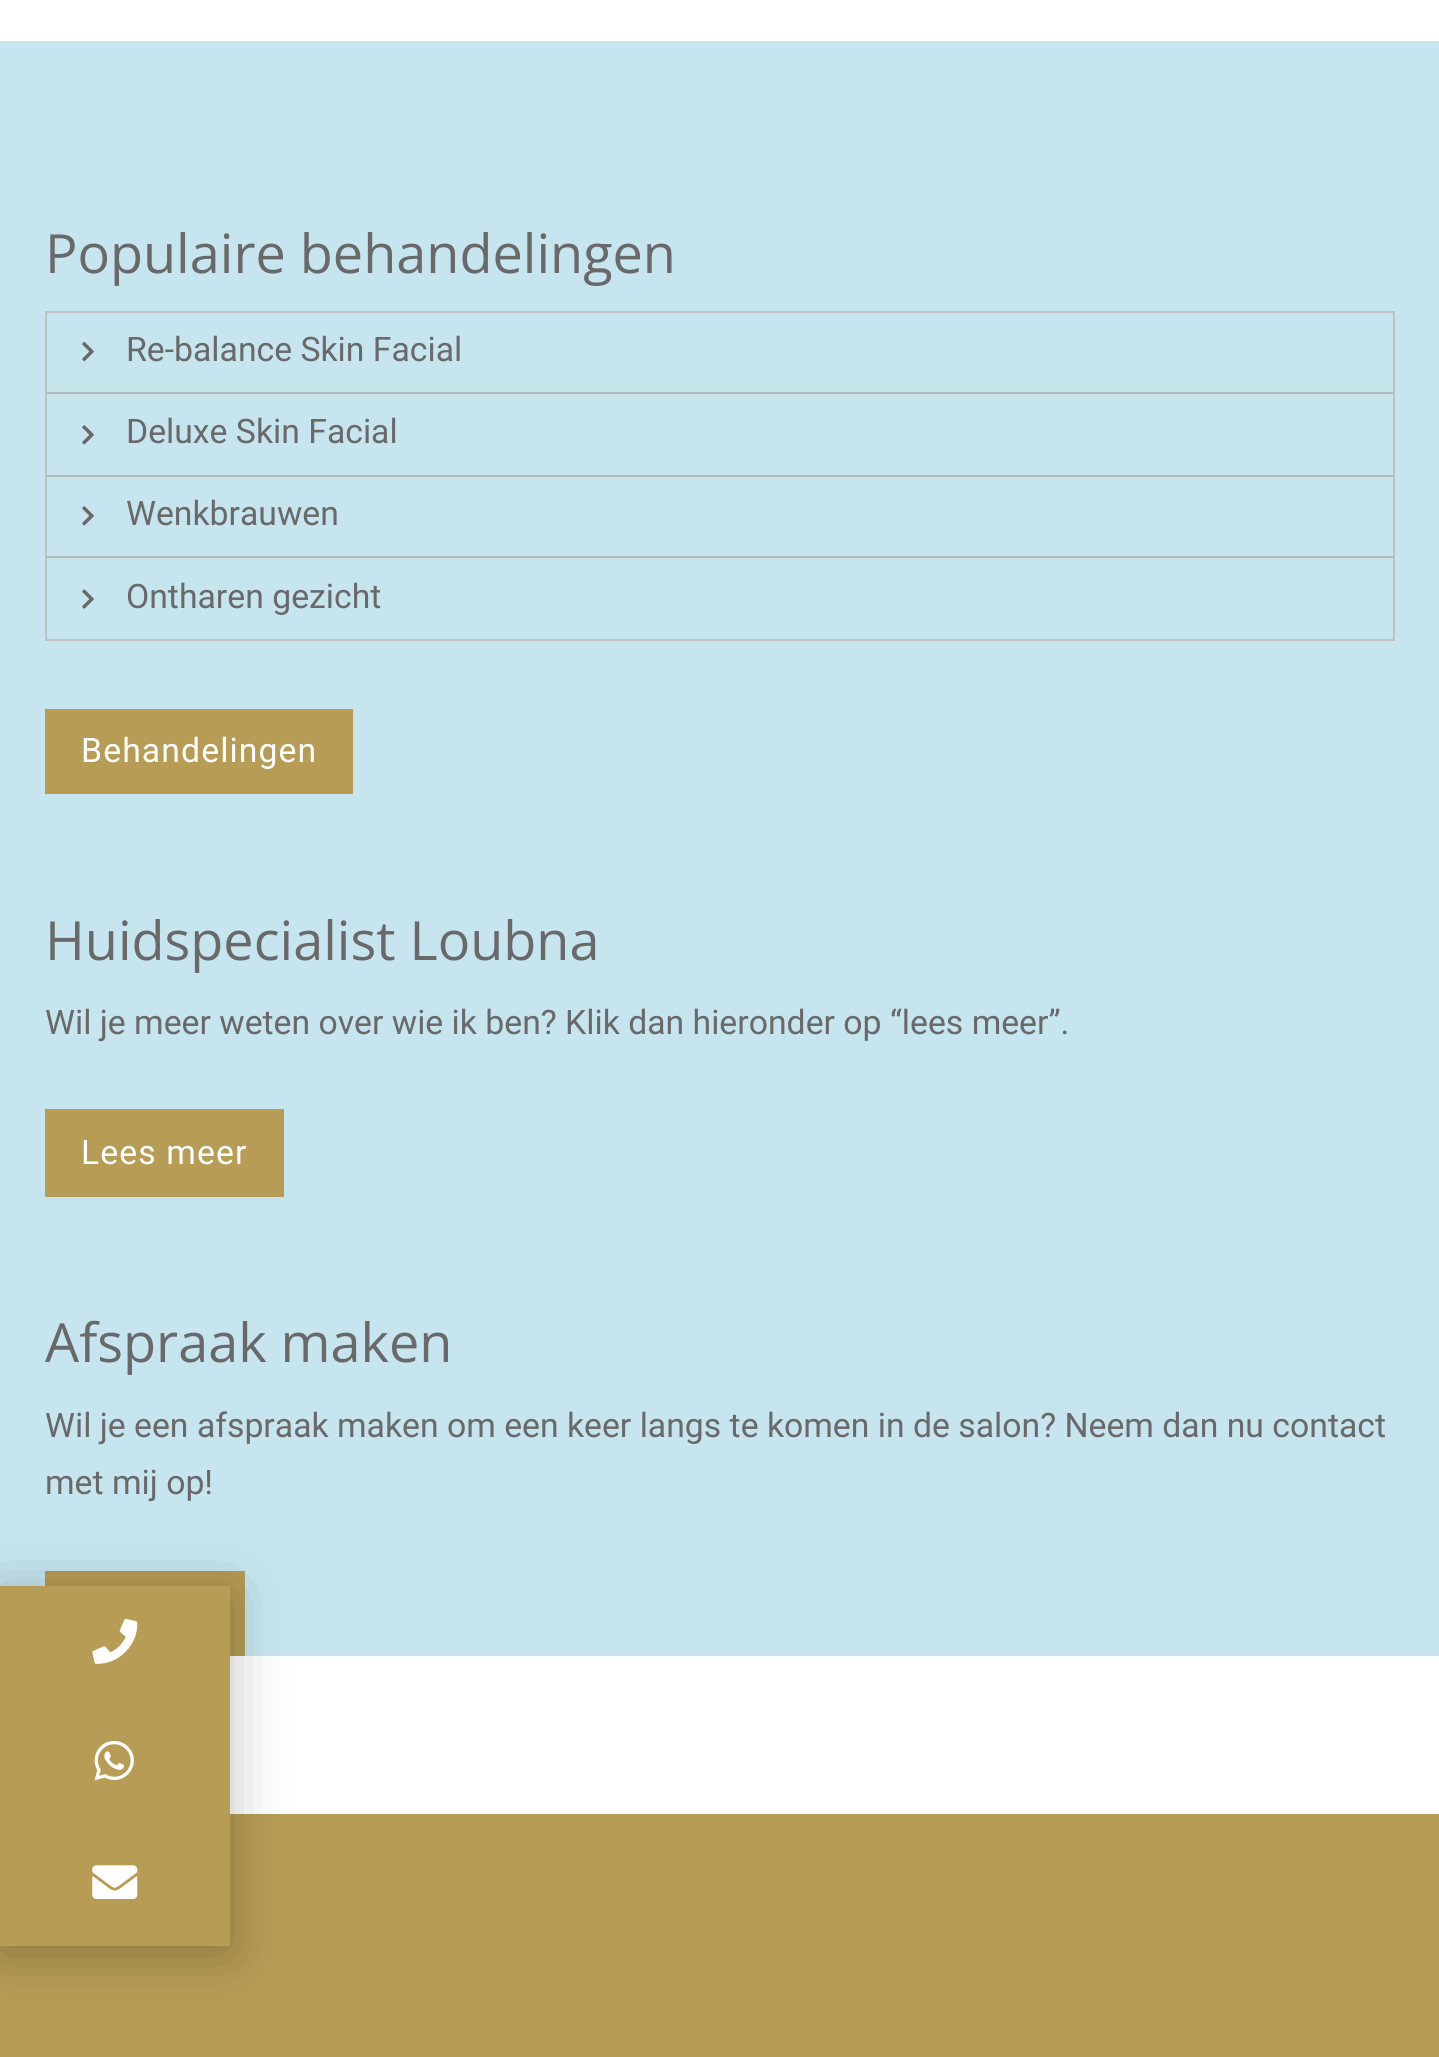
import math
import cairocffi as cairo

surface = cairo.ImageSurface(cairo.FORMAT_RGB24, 1439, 2057)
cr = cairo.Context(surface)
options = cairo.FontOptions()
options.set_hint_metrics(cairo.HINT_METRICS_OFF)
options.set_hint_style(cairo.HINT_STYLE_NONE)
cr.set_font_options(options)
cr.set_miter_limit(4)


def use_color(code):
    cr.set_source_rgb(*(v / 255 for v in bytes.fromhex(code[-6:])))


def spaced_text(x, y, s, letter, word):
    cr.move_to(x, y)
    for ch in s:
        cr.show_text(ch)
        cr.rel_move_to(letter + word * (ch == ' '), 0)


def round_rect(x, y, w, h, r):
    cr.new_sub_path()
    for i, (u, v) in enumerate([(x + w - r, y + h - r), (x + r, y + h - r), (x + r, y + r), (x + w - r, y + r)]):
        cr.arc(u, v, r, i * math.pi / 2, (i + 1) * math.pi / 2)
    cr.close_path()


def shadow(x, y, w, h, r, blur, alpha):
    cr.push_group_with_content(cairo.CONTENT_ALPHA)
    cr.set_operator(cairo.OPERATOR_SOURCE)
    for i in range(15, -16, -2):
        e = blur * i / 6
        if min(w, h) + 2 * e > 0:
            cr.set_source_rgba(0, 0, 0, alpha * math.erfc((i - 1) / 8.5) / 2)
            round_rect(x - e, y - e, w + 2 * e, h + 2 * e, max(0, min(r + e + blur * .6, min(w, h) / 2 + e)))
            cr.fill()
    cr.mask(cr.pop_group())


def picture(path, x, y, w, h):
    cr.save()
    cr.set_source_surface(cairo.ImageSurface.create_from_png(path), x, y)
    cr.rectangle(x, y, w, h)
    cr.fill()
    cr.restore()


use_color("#ffffff")
cr.paint()
use_color("#c6e5ef")
cr.rectangle(0, 41, 1439, 1615)
cr.fill()
cr.select_font_face("Open Sans")
cr.set_font_size(54)
use_color("#696969")
cr.move_to(45, 273)
cr.show_text("Populaire behandelingen")
cr.rectangle(46, 312, 1348, 328)
use_color("#c1c1c1")
cr.stroke()
use_color("#b2bcbc")
cr.rectangle(47, 392, 1346, 2)
cr.fill()
picture("img1.png", 82, 342, 12, 20)
cr.select_font_face("Roboto")
cr.set_font_size(33.75)
use_color("#696969")
cr.move_to(126, 361)
cr.show_text("Re-balance Skin Facial")
use_color("#b2bcbc")
cr.rectangle(47, 475, 1346, 2)
cr.fill()
picture("img2.png", 82, 425, 12, 20)
use_color("#696969")
cr.move_to(126, 443)
cr.show_text("Deluxe Skin Facial")
use_color("#b2bcbc")
cr.rectangle(47, 556, 1346, 2)
cr.fill()
picture("img2.png", 82, 506, 12, 20)
use_color("#696969")
cr.move_to(126, 525)
cr.show_text("Wenkbrauwen")
picture("img3.png", 82, 589, 12, 20)
cr.move_to(126, 608)
cr.show_text("Ontharen gezicht")
use_color("#b79c55")
cr.rectangle(45, 709, 308, 85)
cr.fill()
use_color("#ffffff")
spaced_text(81, 762, "Behandelingen", 1.1, 0)
cr.select_font_face("Open Sans")
cr.set_font_size(54)
use_color("#696969")
cr.move_to(45, 960)
cr.show_text("Huidspecialist Loubna")
cr.select_font_face("Roboto")
cr.set_font_size(33.75)
cr.move_to(45, 1034)
cr.show_text("Wil je meer weten over wie ik ben? Klik dan hieronder op “lees meer”.")
use_color("#b79c55")
cr.rectangle(45, 1109, 239, 88)
cr.fill()
use_color("#ffffff")
spaced_text(81, 1164, "Lees meer", 1.1, 0)
cr.select_font_face("Open Sans")
cr.set_font_size(54)
use_color("#696969")
cr.move_to(45, 1362)
cr.show_text("Afspraak maken")
cr.select_font_face("Roboto")
cr.set_font_size(33.75)
cr.move_to(45, 1437)
cr.show_text("Wil je een afspraak maken om een keer langs te komen in de salon? Neem dan nu contact")
cr.move_to(45, 1494)
cr.show_text("met mij op!")
use_color("#b79c55")
cr.rectangle(45, 1571, 200, 85)
cr.fill()
cr.rectangle(0, 1814, 1439, 243)
cr.fill()
use_color("#000000")
shadow(0, 1593, 230, 360, 0, 28, 0.25)
use_color("#b79c55")
cr.rectangle(0, 1586, 230, 360)
cr.fill()
picture("img4.png", 92, 1618, 46, 46)
picture("img5.png", 94, 1740, 40, 41)
picture("img6.png", 92, 1865, 46, 34)
surface.write_to_png("result.png")
